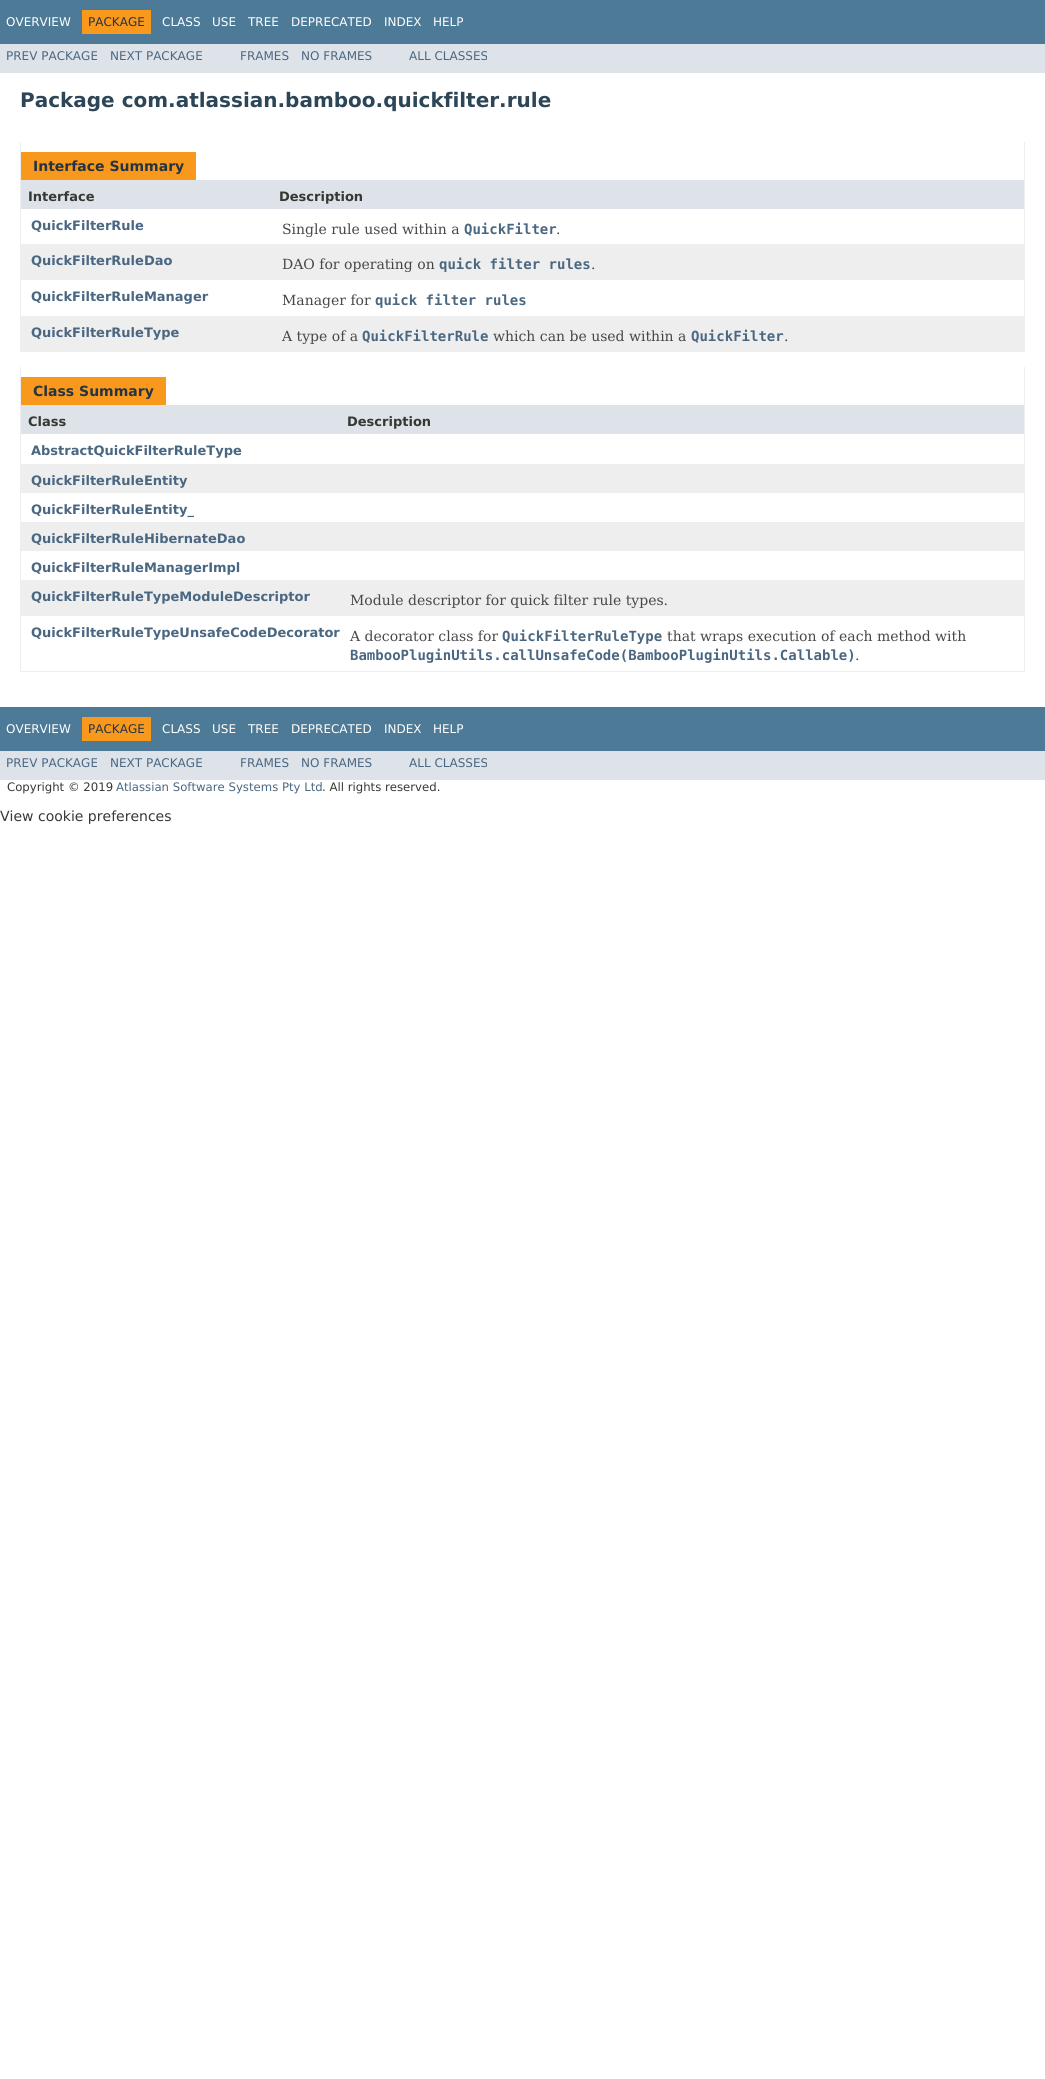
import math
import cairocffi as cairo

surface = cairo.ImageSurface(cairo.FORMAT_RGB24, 1045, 2079)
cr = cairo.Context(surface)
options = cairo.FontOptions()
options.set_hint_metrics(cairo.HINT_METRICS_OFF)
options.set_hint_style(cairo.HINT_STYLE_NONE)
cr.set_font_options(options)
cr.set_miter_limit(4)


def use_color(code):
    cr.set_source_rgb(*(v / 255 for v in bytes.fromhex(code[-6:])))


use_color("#ffffff")
cr.paint()
use_color("#4d7a97")
cr.rectangle(0, 0, 1045, 44)
cr.fill()
cr.select_font_face("DejaVu Sans")
cr.set_font_size(12)
use_color("#ffffff")
cr.move_to(6, 26)
cr.show_text("OVERVIEW")
use_color("#f8981d")
cr.rectangle(82, 10, 69, 24)
cr.fill()
use_color("#253441")
cr.move_to(88, 26)
cr.show_text("PACKAGE")
use_color("#ffffff")
cr.move_to(162, 26)
cr.show_text("CLASS")
cr.move_to(212, 26)
cr.show_text("USE")
cr.move_to(248, 26)
cr.show_text("TREE")
cr.move_to(291, 26)
cr.show_text("DEPRECATED")
cr.move_to(384, 26)
cr.show_text("INDEX")
cr.move_to(433, 26)
cr.show_text("HELP")
use_color("#dee3e9")
cr.rectangle(0, 44, 1045, 29)
cr.fill()
use_color("#4a6782")
cr.move_to(6, 60)
cr.show_text("PREV PACKAGE")
cr.move_to(110, 60)
cr.show_text("NEXT PACKAGE")
cr.move_to(240, 60)
cr.show_text("FRAMES")
cr.move_to(301, 60)
cr.show_text("NO FRAMES")
cr.move_to(409, 60)
cr.show_text("ALL CLASSES")
cr.select_font_face("DejaVu Sans", cairo.FONT_SLANT_NORMAL, cairo.FONT_WEIGHT_BOLD)
cr.set_font_size(20)
use_color("#2c4557")
cr.move_to(20, 107)
cr.show_text("Package com.atlassian.bamboo.quickfilter.rule")
use_color("#eeeeee")
cr.rectangle(1024, 142, 1, 210)
cr.fill()
cr.rectangle(20, 351, 1005, 1)
cr.fill()
cr.rectangle(20, 142, 1, 210)
cr.fill()
use_color("#f8981d")
cr.rectangle(21, 152, 175, 28)
cr.fill()
cr.set_font_size(14)
use_color("#253441")
cr.move_to(33, 171)
cr.show_text("Interface Summary")
use_color("#dee3e9")
cr.rectangle(21, 180, 1003, 29)
cr.fill()
cr.set_font_size(13)
use_color("#353833")
cr.move_to(28, 201)
cr.show_text("Interface")
cr.move_to(279, 201)
cr.show_text("Description")
use_color("#4a6782")
cr.move_to(31, 230)
cr.show_text("QuickFilterRule")
cr.select_font_face("DejaVu Serif")
cr.set_font_size(14)
use_color("#474747")
cr.move_to(282, 234)
cr.show_text("Single rule used within a")
cr.select_font_face("DejaVu Sans Mono", cairo.FONT_SLANT_NORMAL, cairo.FONT_WEIGHT_BOLD)
use_color("#4a6782")
cr.move_to(464, 234)
cr.show_text("QuickFilter")
cr.select_font_face("DejaVu Serif")
use_color("#474747")
cr.move_to(556, 234)
cr.show_text(".")
use_color("#eeeeef")
cr.rectangle(21, 244, 1003, 36)
cr.fill()
cr.select_font_face("DejaVu Sans", cairo.FONT_SLANT_NORMAL, cairo.FONT_WEIGHT_BOLD)
cr.set_font_size(13)
use_color("#4a6782")
cr.move_to(31, 265)
cr.show_text("QuickFilterRuleDao")
cr.select_font_face("DejaVu Serif")
cr.set_font_size(14)
use_color("#474747")
cr.move_to(282, 269)
cr.show_text("DAO for operating on")
cr.select_font_face("DejaVu Sans Mono", cairo.FONT_SLANT_NORMAL, cairo.FONT_WEIGHT_BOLD)
use_color("#4a6782")
cr.move_to(439, 269)
cr.show_text("quick filter rules")
cr.select_font_face("DejaVu Serif")
use_color("#474747")
cr.move_to(591, 269)
cr.show_text(".")
cr.select_font_face("DejaVu Sans", cairo.FONT_SLANT_NORMAL, cairo.FONT_WEIGHT_BOLD)
cr.set_font_size(13)
use_color("#4a6782")
cr.move_to(31, 301)
cr.show_text("QuickFilterRuleManager")
cr.select_font_face("DejaVu Serif")
cr.set_font_size(14)
use_color("#474747")
cr.move_to(282, 305)
cr.show_text("Manager for")
cr.select_font_face("DejaVu Sans Mono", cairo.FONT_SLANT_NORMAL, cairo.FONT_WEIGHT_BOLD)
use_color("#4a6782")
cr.move_to(375, 305)
cr.show_text("quick filter rules")
use_color("#eeeeef")
cr.rectangle(21, 316, 1003, 35)
cr.fill()
cr.select_font_face("DejaVu Sans", cairo.FONT_SLANT_NORMAL, cairo.FONT_WEIGHT_BOLD)
cr.set_font_size(13)
use_color("#4a6782")
cr.move_to(31, 337)
cr.show_text("QuickFilterRuleType")
cr.select_font_face("DejaVu Serif")
cr.set_font_size(14)
use_color("#474747")
cr.move_to(282, 341)
cr.show_text("A type of a")
cr.select_font_face("DejaVu Sans Mono", cairo.FONT_SLANT_NORMAL, cairo.FONT_WEIGHT_BOLD)
use_color("#4a6782")
cr.move_to(362, 341)
cr.show_text("QuickFilterRule")
cr.select_font_face("DejaVu Serif")
use_color("#474747")
cr.move_to(493, 341)
cr.show_text("which can be used within a")
cr.select_font_face("DejaVu Sans Mono", cairo.FONT_SLANT_NORMAL, cairo.FONT_WEIGHT_BOLD)
use_color("#4a6782")
cr.move_to(691, 341)
cr.show_text("QuickFilter")
cr.select_font_face("DejaVu Serif")
use_color("#474747")
cr.move_to(784, 341)
cr.show_text(".")
use_color("#eeeeee")
cr.rectangle(1024, 367, 1, 305)
cr.fill()
cr.rectangle(20, 671, 1005, 1)
cr.fill()
cr.rectangle(20, 367, 1, 305)
cr.fill()
use_color("#f8981d")
cr.rectangle(21, 377, 145, 28)
cr.fill()
cr.select_font_face("DejaVu Sans", cairo.FONT_SLANT_NORMAL, cairo.FONT_WEIGHT_BOLD)
use_color("#253441")
cr.move_to(33, 396)
cr.show_text("Class Summary")
use_color("#dee3e9")
cr.rectangle(21, 405, 1003, 29)
cr.fill()
cr.set_font_size(13)
use_color("#353833")
cr.move_to(28, 426)
cr.show_text("Class")
cr.move_to(347, 426)
cr.show_text("Description")
use_color("#4a6782")
cr.move_to(31, 455)
cr.show_text("AbstractQuickFilterRuleType")
use_color("#eeeeef")
cr.rectangle(21, 464, 1003, 29)
cr.fill()
use_color("#4a6782")
cr.move_to(31, 485)
cr.show_text("QuickFilterRuleEntity")
cr.move_to(31, 514)
cr.show_text("QuickFilterRuleEntity_")
use_color("#eeeeef")
cr.rectangle(21, 522, 1003, 29)
cr.fill()
use_color("#4a6782")
cr.move_to(31, 543)
cr.show_text("QuickFilterRuleHibernateDao")
cr.move_to(31, 572)
cr.show_text("QuickFilterRuleManagerImpl")
use_color("#eeeeef")
cr.rectangle(21, 580, 1003, 36)
cr.fill()
use_color("#4a6782")
cr.move_to(31, 601)
cr.show_text("QuickFilterRuleTypeModuleDescriptor")
cr.select_font_face("DejaVu Serif")
cr.set_font_size(14)
use_color("#474747")
cr.move_to(350, 605)
cr.show_text("Module descriptor for quick filter rule types.")
cr.select_font_face("DejaVu Sans", cairo.FONT_SLANT_NORMAL, cairo.FONT_WEIGHT_BOLD)
cr.set_font_size(13)
use_color("#4a6782")
cr.move_to(31, 637)
cr.show_text("QuickFilterRuleTypeUnsafeCodeDecorator")
cr.select_font_face("DejaVu Serif")
cr.set_font_size(14)
use_color("#474747")
cr.move_to(350, 641)
cr.show_text("A decorator class for")
cr.select_font_face("DejaVu Sans Mono", cairo.FONT_SLANT_NORMAL, cairo.FONT_WEIGHT_BOLD)
use_color("#4a6782")
cr.move_to(502, 641)
cr.show_text("QuickFilterRuleType")
cr.select_font_face("DejaVu Serif")
use_color("#474747")
cr.move_to(667, 641)
cr.show_text("that wraps execution of each method with")
cr.select_font_face("DejaVu Sans Mono", cairo.FONT_SLANT_NORMAL, cairo.FONT_WEIGHT_BOLD)
use_color("#4a6782")
cr.move_to(350, 660)
cr.show_text("BambooPluginUtils.callUnsafeCode(BambooPluginUtils.Callable)")
cr.select_font_face("DejaVu Serif")
use_color("#474747")
cr.move_to(855, 660)
cr.show_text(".")
use_color("#4d7a97")
cr.rectangle(0, 707, 1045, 44)
cr.fill()
cr.select_font_face("DejaVu Sans")
cr.set_font_size(12)
use_color("#ffffff")
cr.move_to(6, 733)
cr.show_text("OVERVIEW")
use_color("#f8981d")
cr.rectangle(82, 717, 69, 24)
cr.fill()
use_color("#253441")
cr.move_to(88, 733)
cr.show_text("PACKAGE")
use_color("#ffffff")
cr.move_to(162, 733)
cr.show_text("CLASS")
cr.move_to(212, 733)
cr.show_text("USE")
cr.move_to(248, 733)
cr.show_text("TREE")
cr.move_to(291, 733)
cr.show_text("DEPRECATED")
cr.move_to(384, 733)
cr.show_text("INDEX")
cr.move_to(433, 733)
cr.show_text("HELP")
use_color("#dee3e9")
cr.rectangle(0, 751, 1045, 29)
cr.fill()
use_color("#4a6782")
cr.move_to(6, 767)
cr.show_text("PREV PACKAGE")
cr.move_to(110, 767)
cr.show_text("NEXT PACKAGE")
cr.move_to(240, 767)
cr.show_text("FRAMES")
cr.move_to(301, 767)
cr.show_text("NO FRAMES")
cr.move_to(409, 767)
cr.show_text("ALL CLASSES")
cr.set_font_size(11.7)
use_color("#353833")
cr.move_to(7, 791)
cr.show_text("Copyright © 2019")
use_color("#4a6782")
cr.move_to(116, 791)
cr.show_text("Atlassian Software Systems Pty Ltd")
use_color("#353833")
cr.move_to(322, 791)
cr.show_text(". All rights reserved.")
cr.set_font_size(14)
cr.move_to(0, 821)
cr.show_text("View cookie preferences")
surface.write_to_png("result.png")
